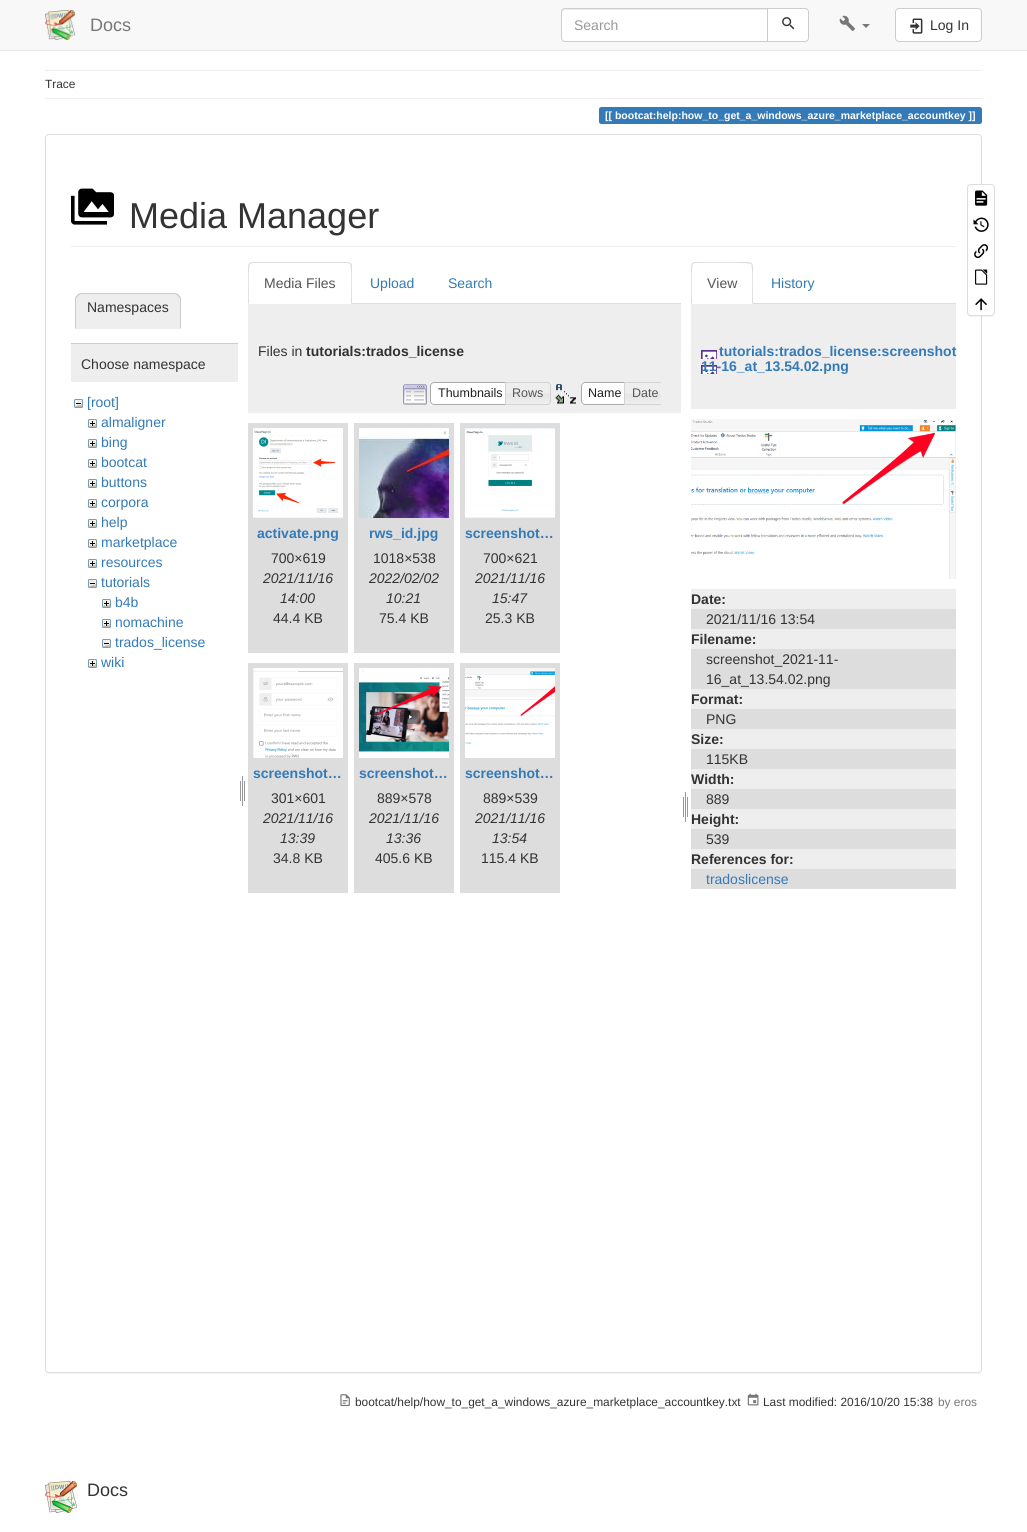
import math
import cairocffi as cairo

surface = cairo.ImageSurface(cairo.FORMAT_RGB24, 1027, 1532)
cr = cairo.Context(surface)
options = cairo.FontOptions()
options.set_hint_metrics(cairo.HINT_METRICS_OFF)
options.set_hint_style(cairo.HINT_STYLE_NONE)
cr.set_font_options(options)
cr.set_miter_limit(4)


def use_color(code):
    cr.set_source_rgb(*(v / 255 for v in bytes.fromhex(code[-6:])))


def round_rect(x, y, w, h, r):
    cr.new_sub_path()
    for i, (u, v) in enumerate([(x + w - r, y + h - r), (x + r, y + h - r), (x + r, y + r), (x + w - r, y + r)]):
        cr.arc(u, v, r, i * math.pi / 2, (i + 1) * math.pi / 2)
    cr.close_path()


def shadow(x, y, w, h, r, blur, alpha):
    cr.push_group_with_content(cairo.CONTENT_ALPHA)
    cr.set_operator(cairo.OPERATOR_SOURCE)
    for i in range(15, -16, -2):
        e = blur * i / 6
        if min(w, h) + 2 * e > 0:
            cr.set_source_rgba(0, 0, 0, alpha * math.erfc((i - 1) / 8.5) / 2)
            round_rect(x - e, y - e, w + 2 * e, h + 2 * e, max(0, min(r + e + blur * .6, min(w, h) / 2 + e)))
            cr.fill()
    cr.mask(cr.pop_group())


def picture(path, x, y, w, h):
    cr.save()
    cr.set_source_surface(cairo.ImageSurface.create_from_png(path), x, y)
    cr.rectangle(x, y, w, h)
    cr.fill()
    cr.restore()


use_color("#ffffff")
cr.paint()
use_color("#f8f8f8")
cr.rectangle(0, 0, 1027, 50)
cr.fill()
use_color("#e7e7e7")
cr.rectangle(0, 50, 1027, 1)
cr.fill()
picture("img1.png", 45, 10, 30, 30)
cr.select_font_face("Liberation Sans")
cr.set_font_size(18)
use_color("#777777")
cr.move_to(90, 31)
cr.show_text("Docs")
use_color("#ffffff")
cr.new_path()
cr.move_to(565, 8)
cr.line_to(768, 8)
cr.line_to(768, 42)
cr.line_to(565, 42)
cr.curve_to(563, 42, 561, 40, 561, 38)
cr.line_to(561, 12)
cr.curve_to(561, 10, 563, 8, 565, 8)
cr.close_path()
cr.fill()
use_color("#ececec")
cr.new_path()
cr.move_to(565, 10)
cr.line_to(767, 10)
cr.line_to(767, 9)
cr.line_to(564, 9)
cr.curve_to(562, 10, 562, 11, 562, 13)
cr.curve_to(562, 11, 563, 10, 565, 10)
cr.close_path()
cr.fill()
cr.new_path()
cr.move_to(565, 8.5)
cr.line_to(767.5, 8.5)
cr.line_to(767.5, 41.5)
cr.line_to(565, 41.5)
cr.curve_to(563, 41.5, 561.5, 40, 561.5, 38)
cr.line_to(561.5, 12)
cr.curve_to(561.5, 10, 563, 8.5, 565, 8.5)
cr.close_path()
use_color("#cccccc")
cr.set_line_width(1)
cr.stroke()
cr.set_font_size(14)
use_color("#999999")
cr.move_to(574, 30)
cr.show_text("Search")
use_color("#ffffff")
cr.new_path()
cr.move_to(767.5, 8.5)
cr.line_to(805, 8.5)
cr.curve_to(807, 8.5, 808.5, 10, 808.5, 12)
cr.line_to(808.5, 38)
cr.curve_to(808.5, 40, 807, 41.5, 805, 41.5)
cr.line_to(767.5, 41.5)
cr.close_path()
cr.fill_preserve()
use_color("#cccccc")
cr.stroke()
picture("img2.png", 782, 17, 13, 13)
picture("img3.png", 839, 15, 16, 16)
use_color("#777777")
cr.new_path()
cr.move_to(862, 24)
cr.line_to(870, 24)
cr.line_to(866, 28)
cr.close_path()
cr.fill()
use_color("#ffffff")
round_rect(895.5, 8.5, 86, 33, 3.5)
cr.fill_preserve()
use_color("#cccccc")
cr.stroke()
picture("img4.png", 910, 18, 13, 16)
use_color("#333333")
cr.move_to(930, 30)
cr.show_text("Log In")
use_color("#eeeeee")
cr.rectangle(45, 70, 937, 1)
cr.fill()
cr.set_font_size(11.9)
use_color("#333333")
cr.move_to(45, 88)
cr.show_text("Trace")
use_color("#eeeeee")
cr.rectangle(45, 98, 937, 1)
cr.fill()
use_color("#337ab7")
cr.new_path()
cr.move_to(601.5, 107)
cr.line_to(615, 107)
cr.line_to(615, 124)
cr.line_to(601.5, 124)
cr.curve_to(600, 124, 599, 123, 599, 121.5)
cr.line_to(599, 109.5)
cr.curve_to(599, 108, 600, 107, 601.5, 107)
cr.close_path()
cr.fill()
cr.rectangle(615, 107, 351, 17)
cr.fill()
cr.new_path()
cr.move_to(966, 107)
cr.line_to(979.5, 107)
cr.curve_to(981, 107, 982, 108, 982, 109.5)
cr.line_to(982, 121.5)
cr.curve_to(982, 123, 981, 124, 979.5, 124)
cr.line_to(966, 124)
cr.close_path()
cr.fill()
cr.select_font_face("Liberation Sans", cairo.FONT_SLANT_NORMAL, cairo.FONT_WEIGHT_BOLD)
cr.set_font_size(10.5)
use_color("#ffffff")
cr.move_to(605, 119)
cr.show_text("[[ bootcat:help:how_to_get_a_windows_azure_marketplace_accountkey ]]")
use_color("#000000")
shadow(45, 135, 937, 1239, 4, 0.5, 0.05)
use_color("#ffffff")
round_rect(45.5, 134.5, 936, 1238, 3.5)
cr.fill_preserve()
use_color("#dddddd")
cr.stroke()
use_color("#eeeeee")
cr.rectangle(71, 246, 885, 1)
cr.fill()
picture("img5.png", 71, 188, 43, 37)
cr.select_font_face("Liberation Sans")
cr.set_font_size(36)
use_color("#333333")
cr.move_to(129, 228)
cr.show_text("Media Manager")
use_color("#eeeeee")
cr.new_path()
cr.move_to(82, 293)
cr.line_to(174, 293)
cr.curve_to(178, 293, 181, 296, 181, 300)
cr.line_to(181, 329)
cr.line_to(75, 329)
cr.line_to(75, 300)
cr.curve_to(75, 296, 78, 293, 82, 293)
cr.close_path()
cr.fill()
use_color("#cccccc")
cr.new_path()
cr.move_to(82, 293)
cr.curve_to(80, 293, 78, 294, 77, 295)
cr.line_to(78, 296)
cr.line_to(81, 294)
cr.line_to(175, 294)
cr.line_to(178, 296)
cr.line_to(179, 295)
cr.curve_to(178, 294, 176, 293, 174, 293)
cr.close_path()
cr.fill()
cr.new_path()
cr.move_to(181, 329)
cr.line_to(181, 300)
cr.curve_to(181, 298, 180, 296, 179, 295)
cr.line_to(178, 296)
cr.curve_to(179, 297, 180, 298.5, 180, 300)
cr.line_to(180, 328)
cr.close_path()
cr.fill()
use_color("#eeeeee")
cr.new_path()
cr.move_to(181, 329)
cr.line_to(180, 328)
cr.line_to(76, 328)
cr.line_to(75, 329)
cr.close_path()
cr.fill()
use_color("#cccccc")
cr.new_path()
cr.move_to(75, 329)
cr.line_to(76, 328)
cr.line_to(76, 300)
cr.curve_to(76, 298.5, 77, 297, 78, 296)
cr.line_to(77, 295)
cr.curve_to(76, 296, 75, 298, 75, 300)
cr.close_path()
cr.fill()
cr.set_font_size(14)
use_color("#333333")
cr.move_to(87, 312)
cr.show_text("Namespaces")
use_color("#eeeeee")
cr.rectangle(71, 344, 167, 38)
cr.fill()
use_color("#cccccc")
cr.rectangle(71, 343, 167, 1)
cr.fill()
use_color("#333333")
cr.move_to(81, 369)
cr.show_text("Choose namespace")
picture("img6.png", 74, 399, 9, 9)
use_color("#337ab7")
cr.move_to(87, 407)
cr.show_text("[root]")
picture("img7.png", 88, 419, 9, 9)
cr.move_to(101, 427)
cr.show_text("almaligner")
picture("img7.png", 88, 439, 9, 9)
cr.move_to(101, 447)
cr.show_text("bing")
picture("img7.png", 88, 459, 9, 9)
cr.move_to(101, 467)
cr.show_text("bootcat")
picture("img7.png", 88, 479, 9, 9)
cr.move_to(101, 487)
cr.show_text("buttons")
picture("img7.png", 88, 499, 9, 9)
cr.move_to(101, 507)
cr.show_text("corpora")
picture("img7.png", 88, 519, 9, 9)
cr.move_to(101, 527)
cr.show_text("help")
picture("img7.png", 88, 539, 9, 9)
cr.move_to(101, 547)
cr.show_text("marketplace")
picture("img7.png", 88, 559, 9, 9)
cr.move_to(101, 567)
cr.show_text("resources")
picture("img6.png", 88, 579, 9, 9)
cr.move_to(101, 587)
cr.show_text("tutorials")
picture("img7.png", 102, 599, 9, 9)
cr.move_to(115, 607)
cr.show_text("b4b")
picture("img7.png", 102, 619, 9, 9)
cr.move_to(115, 627)
cr.show_text("nomachine")
picture("img6.png", 102, 639, 9, 9)
cr.move_to(115, 647)
cr.show_text("trados_license")
picture("img7.png", 88, 659, 9, 9)
cr.move_to(101, 667)
cr.show_text("wiki")
picture("img8.png", 240, 775, 5, 31)
use_color("#dddddd")
cr.rectangle(352, 303, 329, 1)
cr.fill()
cr.new_path()
cr.move_to(252, 262)
cr.line_to(249, 263)
cr.line_to(250, 264)
cr.line_to(252, 263)
cr.line_to(348, 263)
cr.line_to(350, 264)
cr.line_to(351, 263)
cr.line_to(348, 262)
cr.close_path()
cr.fill()
cr.new_path()
cr.move_to(352, 304)
cr.line_to(352, 266)
cr.curve_to(352, 265, 352, 264, 351, 263)
cr.line_to(350, 264)
cr.curve_to(352, 266, 351, 298, 351, 303)
cr.close_path()
cr.fill()
cr.new_path()
cr.move_to(248, 304)
cr.line_to(249, 303)
cr.curve_to(249, 298, 248, 266, 250, 264)
cr.line_to(249, 263)
cr.line_to(248, 266)
cr.close_path()
cr.fill()
use_color("#555555")
cr.move_to(264, 288)
cr.show_text("Media Files")
use_color("#337ab7")
cr.move_to(370, 288)
cr.show_text("Upload")
cr.move_to(448, 288)
cr.show_text("Search")
use_color("#eeeeee")
cr.rectangle(248, 304, 433, 109)
cr.fill()
use_color("#333333")
cr.move_to(258, 356)
cr.show_text("Files in")
cr.select_font_face("Liberation Sans", cairo.FONT_SLANT_NORMAL, cairo.FONT_WEIGHT_BOLD)
cr.move_to(306, 356)
cr.show_text("tutorials:trados_license")
picture("img9.png", 403, 384, 24, 21)
use_color("#ffffff")
cr.rectangle(430, 382, 75, 23)
cr.fill()
cr.new_path()
cr.move_to(434, 382.5)
cr.line_to(509.5, 382.5)
cr.line_to(509.5, 404.5)
cr.line_to(434, 404.5)
cr.curve_to(432, 404.5, 430.5, 403, 430.5, 401)
cr.line_to(430.5, 386)
cr.curve_to(430.5, 384, 432, 382.5, 434, 382.5)
cr.close_path()
use_color("#aaaaaa")
cr.stroke()
cr.select_font_face("Liberation Sans")
cr.set_font_size(12.5)
use_color("#212121")
cr.move_to(438, 397)
cr.show_text("Thumbnails")
picture("img10.png", 506, 382, 45, 23)
cr.new_path()
cr.move_to(505.5, 382.5)
cr.line_to(547, 382.5)
cr.curve_to(549, 382.5, 550.5, 384, 550.5, 386)
cr.line_to(550.5, 401)
cr.curve_to(550.5, 403, 549, 404.5, 547, 404.5)
cr.line_to(505.5, 404.5)
cr.close_path()
use_color("#d3d3d3")
cr.stroke()
use_color("#555555")
cr.move_to(512, 397)
cr.show_text("Rows")
picture("img11.png", 555, 384, 21, 20)
use_color("#ffffff")
cr.rectangle(581, 382, 43, 23)
cr.fill()
cr.new_path()
cr.move_to(585, 382.5)
cr.line_to(628.5, 382.5)
cr.line_to(628.5, 404.5)
cr.line_to(585, 404.5)
cr.curve_to(583, 404.5, 581.5, 403, 581.5, 401)
cr.line_to(581.5, 386)
cr.curve_to(581.5, 384, 583, 382.5, 585, 382.5)
cr.close_path()
use_color("#aaaaaa")
cr.stroke()
use_color("#212121")
cr.move_to(588, 397)
cr.show_text("Name")
picture("img12.png", 625, 383, 36, 21)
cr.save()
cr.rectangle(395, 382, 266, 23)
cr.clip()
cr.new_path()
cr.move_to(624.5, 382.5)
cr.line_to(662, 382.5)
cr.curve_to(664, 382.5, 665.5, 384, 665.5, 386)
cr.line_to(665.5, 401)
cr.curve_to(665.5, 403, 664, 404.5, 662, 404.5)
cr.line_to(624.5, 404.5)
cr.close_path()
use_color("#d3d3d3")
cr.stroke()
cr.restore()
use_color("#555555")
cr.move_to(632, 397)
cr.show_text("Date")
use_color("#dddddd")
cr.rectangle(248, 423, 100, 230)
cr.fill()
picture("img13.png", 253, 428, 90, 90)
cr.select_font_face("Liberation Sans", cairo.FONT_SLANT_NORMAL, cairo.FONT_WEIGHT_BOLD)
cr.set_font_size(14)
use_color("#337ab7")
cr.move_to(257, 538)
cr.show_text("activate.png")
cr.select_font_face("Liberation Sans")
use_color("#333333")
cr.move_to(271, 563)
cr.show_text("700×619")
cr.select_font_face("Liberation Sans", cairo.FONT_SLANT_ITALIC)
cr.move_to(263, 583)
cr.show_text("2021/11/16")
cr.move_to(280, 603)
cr.show_text("14:00")
cr.select_font_face("Liberation Sans")
cr.move_to(273, 623)
cr.show_text("44.4 KB")
use_color("#dddddd")
cr.rectangle(354, 423, 100, 230)
cr.fill()
picture("img14.png", 359, 428, 90, 90)
cr.select_font_face("Liberation Sans", cairo.FONT_SLANT_NORMAL, cairo.FONT_WEIGHT_BOLD)
use_color("#337ab7")
cr.move_to(369, 538)
cr.show_text("rws_id.jpg")
cr.select_font_face("Liberation Sans")
use_color("#333333")
cr.move_to(373, 563)
cr.show_text("1018×538")
cr.select_font_face("Liberation Sans", cairo.FONT_SLANT_ITALIC)
cr.move_to(369, 583)
cr.show_text("2022/02/02")
cr.move_to(386, 603)
cr.show_text("10:21")
cr.select_font_face("Liberation Sans")
cr.move_to(379, 623)
cr.show_text("75.4 KB")
use_color("#dddddd")
cr.rectangle(460, 423, 100, 230)
cr.fill()
picture("img15.png", 465, 428, 90, 90)
cr.select_font_face("Liberation Sans", cairo.FONT_SLANT_NORMAL, cairo.FONT_WEIGHT_BOLD)
use_color("#337ab7")
cr.move_to(465, 538)
cr.show_text("screenshot…")
cr.select_font_face("Liberation Sans")
use_color("#333333")
cr.move_to(483, 563)
cr.show_text("700×621")
cr.select_font_face("Liberation Sans", cairo.FONT_SLANT_ITALIC)
cr.move_to(475, 583)
cr.show_text("2021/11/16")
cr.move_to(492, 603)
cr.show_text("15:47")
cr.select_font_face("Liberation Sans")
cr.move_to(485, 623)
cr.show_text("25.3 KB")
use_color("#dddddd")
cr.rectangle(248, 663, 100, 230)
cr.fill()
picture("img16.png", 253, 668, 90, 90)
cr.select_font_face("Liberation Sans", cairo.FONT_SLANT_NORMAL, cairo.FONT_WEIGHT_BOLD)
use_color("#337ab7")
cr.move_to(253, 778)
cr.show_text("screenshot…")
cr.select_font_face("Liberation Sans")
use_color("#333333")
cr.move_to(271, 803)
cr.show_text("301×601")
cr.select_font_face("Liberation Sans", cairo.FONT_SLANT_ITALIC)
cr.move_to(263, 823)
cr.show_text("2021/11/16")
cr.move_to(280, 843)
cr.show_text("13:39")
cr.select_font_face("Liberation Sans")
cr.move_to(273, 863)
cr.show_text("34.8 KB")
use_color("#dddddd")
cr.rectangle(354, 663, 100, 230)
cr.fill()
picture("img17.png", 359, 668, 90, 90)
cr.select_font_face("Liberation Sans", cairo.FONT_SLANT_NORMAL, cairo.FONT_WEIGHT_BOLD)
use_color("#337ab7")
cr.move_to(359, 778)
cr.show_text("screenshot…")
cr.select_font_face("Liberation Sans")
use_color("#333333")
cr.move_to(377, 803)
cr.show_text("889×578")
cr.select_font_face("Liberation Sans", cairo.FONT_SLANT_ITALIC)
cr.move_to(369, 823)
cr.show_text("2021/11/16")
cr.move_to(386, 843)
cr.show_text("13:36")
cr.select_font_face("Liberation Sans")
cr.move_to(375, 863)
cr.show_text("405.6 KB")
use_color("#dddddd")
cr.rectangle(460, 663, 100, 230)
cr.fill()
picture("img18.png", 465, 668, 90, 90)
cr.select_font_face("Liberation Sans", cairo.FONT_SLANT_NORMAL, cairo.FONT_WEIGHT_BOLD)
use_color("#337ab7")
cr.move_to(465, 778)
cr.show_text("screenshot…")
cr.select_font_face("Liberation Sans")
use_color("#333333")
cr.move_to(483, 803)
cr.show_text("889×539")
cr.select_font_face("Liberation Sans", cairo.FONT_SLANT_ITALIC)
cr.move_to(475, 823)
cr.show_text("2021/11/16")
cr.move_to(492, 843)
cr.show_text("13:54")
cr.select_font_face("Liberation Sans")
cr.move_to(481, 863)
cr.show_text("115.4 KB")
picture("img8.png", 683, 791, 5, 31)
use_color("#dddddd")
cr.rectangle(753, 303, 203, 1)
cr.fill()
cr.new_path()
cr.move_to(695, 262)
cr.line_to(692, 263)
cr.line_to(693, 264)
cr.line_to(695, 263)
cr.curve_to(700, 263, 749, 262, 751, 264)
cr.line_to(752, 263)
cr.line_to(749, 262)
cr.close_path()
cr.fill()
cr.new_path()
cr.move_to(753, 304)
cr.line_to(753, 266)
cr.curve_to(753, 265, 752, 264, 752, 263)
cr.line_to(751, 264)
cr.curve_to(753, 266, 752, 298, 752, 303)
cr.close_path()
cr.move_to(691, 304)
cr.line_to(692, 303)
cr.curve_to(692, 298, 691, 266, 693, 264)
cr.line_to(692, 263)
cr.line_to(691, 266)
cr.close_path()
cr.fill()
use_color("#555555")
cr.move_to(707, 288)
cr.show_text("View")
use_color("#337ab7")
cr.move_to(771, 288)
cr.show_text("History")
use_color("#eeeeee")
cr.rectangle(691, 304, 265, 105)
cr.fill()
picture("img19.png", 701, 350, 16, 24)
cr.select_font_face("Liberation Sans", cairo.FONT_SLANT_NORMAL, cairo.FONT_WEIGHT_BOLD)
use_color("#337ab7")
cr.move_to(719, 356)
cr.show_text("tutorials:trados_license:screenshot")
cr.move_to(701, 371)
cr.show_text("11-16_at_13.54.02.png")
picture("img20.png", 691, 419, 265, 160)
use_color("#eeeeee")
cr.rectangle(691, 589, 265, 20)
cr.fill()
use_color("#333333")
cr.move_to(691, 604)
cr.show_text("Date:")
use_color("#dddddd")
cr.rectangle(691, 609, 265, 20)
cr.fill()
cr.select_font_face("Liberation Sans")
use_color("#333333")
cr.move_to(706, 624)
cr.show_text("2021/11/16 13:54")
use_color("#eeeeee")
cr.rectangle(691, 629, 265, 20)
cr.fill()
cr.select_font_face("Liberation Sans", cairo.FONT_SLANT_NORMAL, cairo.FONT_WEIGHT_BOLD)
use_color("#333333")
cr.move_to(691, 644)
cr.show_text("Filename:")
use_color("#dddddd")
cr.rectangle(691, 649, 265, 40)
cr.fill()
cr.select_font_face("Liberation Sans")
use_color("#333333")
cr.move_to(706, 664)
cr.show_text("screenshot_2021-11-")
cr.move_to(706, 684)
cr.show_text("16_at_13.54.02.png")
use_color("#eeeeee")
cr.rectangle(691, 689, 265, 20)
cr.fill()
cr.select_font_face("Liberation Sans", cairo.FONT_SLANT_NORMAL, cairo.FONT_WEIGHT_BOLD)
use_color("#333333")
cr.move_to(691, 704)
cr.show_text("Format:")
use_color("#dddddd")
cr.rectangle(691, 709, 265, 20)
cr.fill()
cr.select_font_face("Liberation Sans")
use_color("#333333")
cr.move_to(706, 724)
cr.show_text("PNG")
use_color("#eeeeee")
cr.rectangle(691, 729, 265, 20)
cr.fill()
cr.select_font_face("Liberation Sans", cairo.FONT_SLANT_NORMAL, cairo.FONT_WEIGHT_BOLD)
use_color("#333333")
cr.move_to(691, 744)
cr.show_text("Size:")
use_color("#dddddd")
cr.rectangle(691, 749, 265, 20)
cr.fill()
cr.select_font_face("Liberation Sans")
use_color("#333333")
cr.move_to(706, 764)
cr.show_text("115KB")
use_color("#eeeeee")
cr.rectangle(691, 769, 265, 20)
cr.fill()
cr.select_font_face("Liberation Sans", cairo.FONT_SLANT_NORMAL, cairo.FONT_WEIGHT_BOLD)
use_color("#333333")
cr.move_to(691, 784)
cr.show_text("Width:")
use_color("#dddddd")
cr.rectangle(691, 789, 265, 20)
cr.fill()
cr.select_font_face("Liberation Sans")
use_color("#333333")
cr.move_to(706, 804)
cr.show_text("889")
use_color("#eeeeee")
cr.rectangle(691, 809, 265, 20)
cr.fill()
cr.select_font_face("Liberation Sans", cairo.FONT_SLANT_NORMAL, cairo.FONT_WEIGHT_BOLD)
use_color("#333333")
cr.move_to(691, 824)
cr.show_text("Height:")
use_color("#dddddd")
cr.rectangle(691, 829, 265, 20)
cr.fill()
cr.select_font_face("Liberation Sans")
use_color("#333333")
cr.move_to(706, 844)
cr.show_text("539")
use_color("#eeeeee")
cr.rectangle(691, 849, 265, 20)
cr.fill()
cr.select_font_face("Liberation Sans", cairo.FONT_SLANT_NORMAL, cairo.FONT_WEIGHT_BOLD)
use_color("#333333")
cr.move_to(691, 864)
cr.show_text("References for:")
use_color("#dddddd")
cr.rectangle(691, 869, 265, 20)
cr.fill()
cr.select_font_face("Liberation Sans")
use_color("#337ab7")
cr.move_to(706, 884)
cr.show_text("tradoslicense")
use_color("#000000")
shadow(967, 185, 28, 132, 4, 0.5, 0.05)
use_color("#ffffff")
round_rect(967.5, 184.5, 27, 131, 3.5)
cr.fill_preserve()
use_color("#dddddd")
cr.stroke()
picture("img21.png", 975, 190, 13, 16)
picture("img22.png", 973, 217, 16, 15)
picture("img23.png", 974, 244, 15, 15)
picture("img24.png", 975, 269, 13, 16)
picture("img25.png", 975, 298, 12, 13)
picture("img26.png", 340, 1394, 10, 13)
cr.set_font_size(11.9)
use_color("#333333")
cr.move_to(355, 1406)
cr.show_text("bootcat/help/how_to_get_a_windows_azure_marketplace_accountkey.txt")
picture("img27.png", 747, 1393, 12, 13)
cr.move_to(763, 1406)
cr.show_text("Last modified: 2016/10/20 15:38")
use_color("#777777")
cr.move_to(938, 1406)
cr.show_text("by eros")
picture("img28.png", 45, 1481, 32, 32)
cr.set_font_size(18)
use_color("#333333")
cr.move_to(87, 1496)
cr.show_text("Docs")
surface.write_to_png("result.png")
